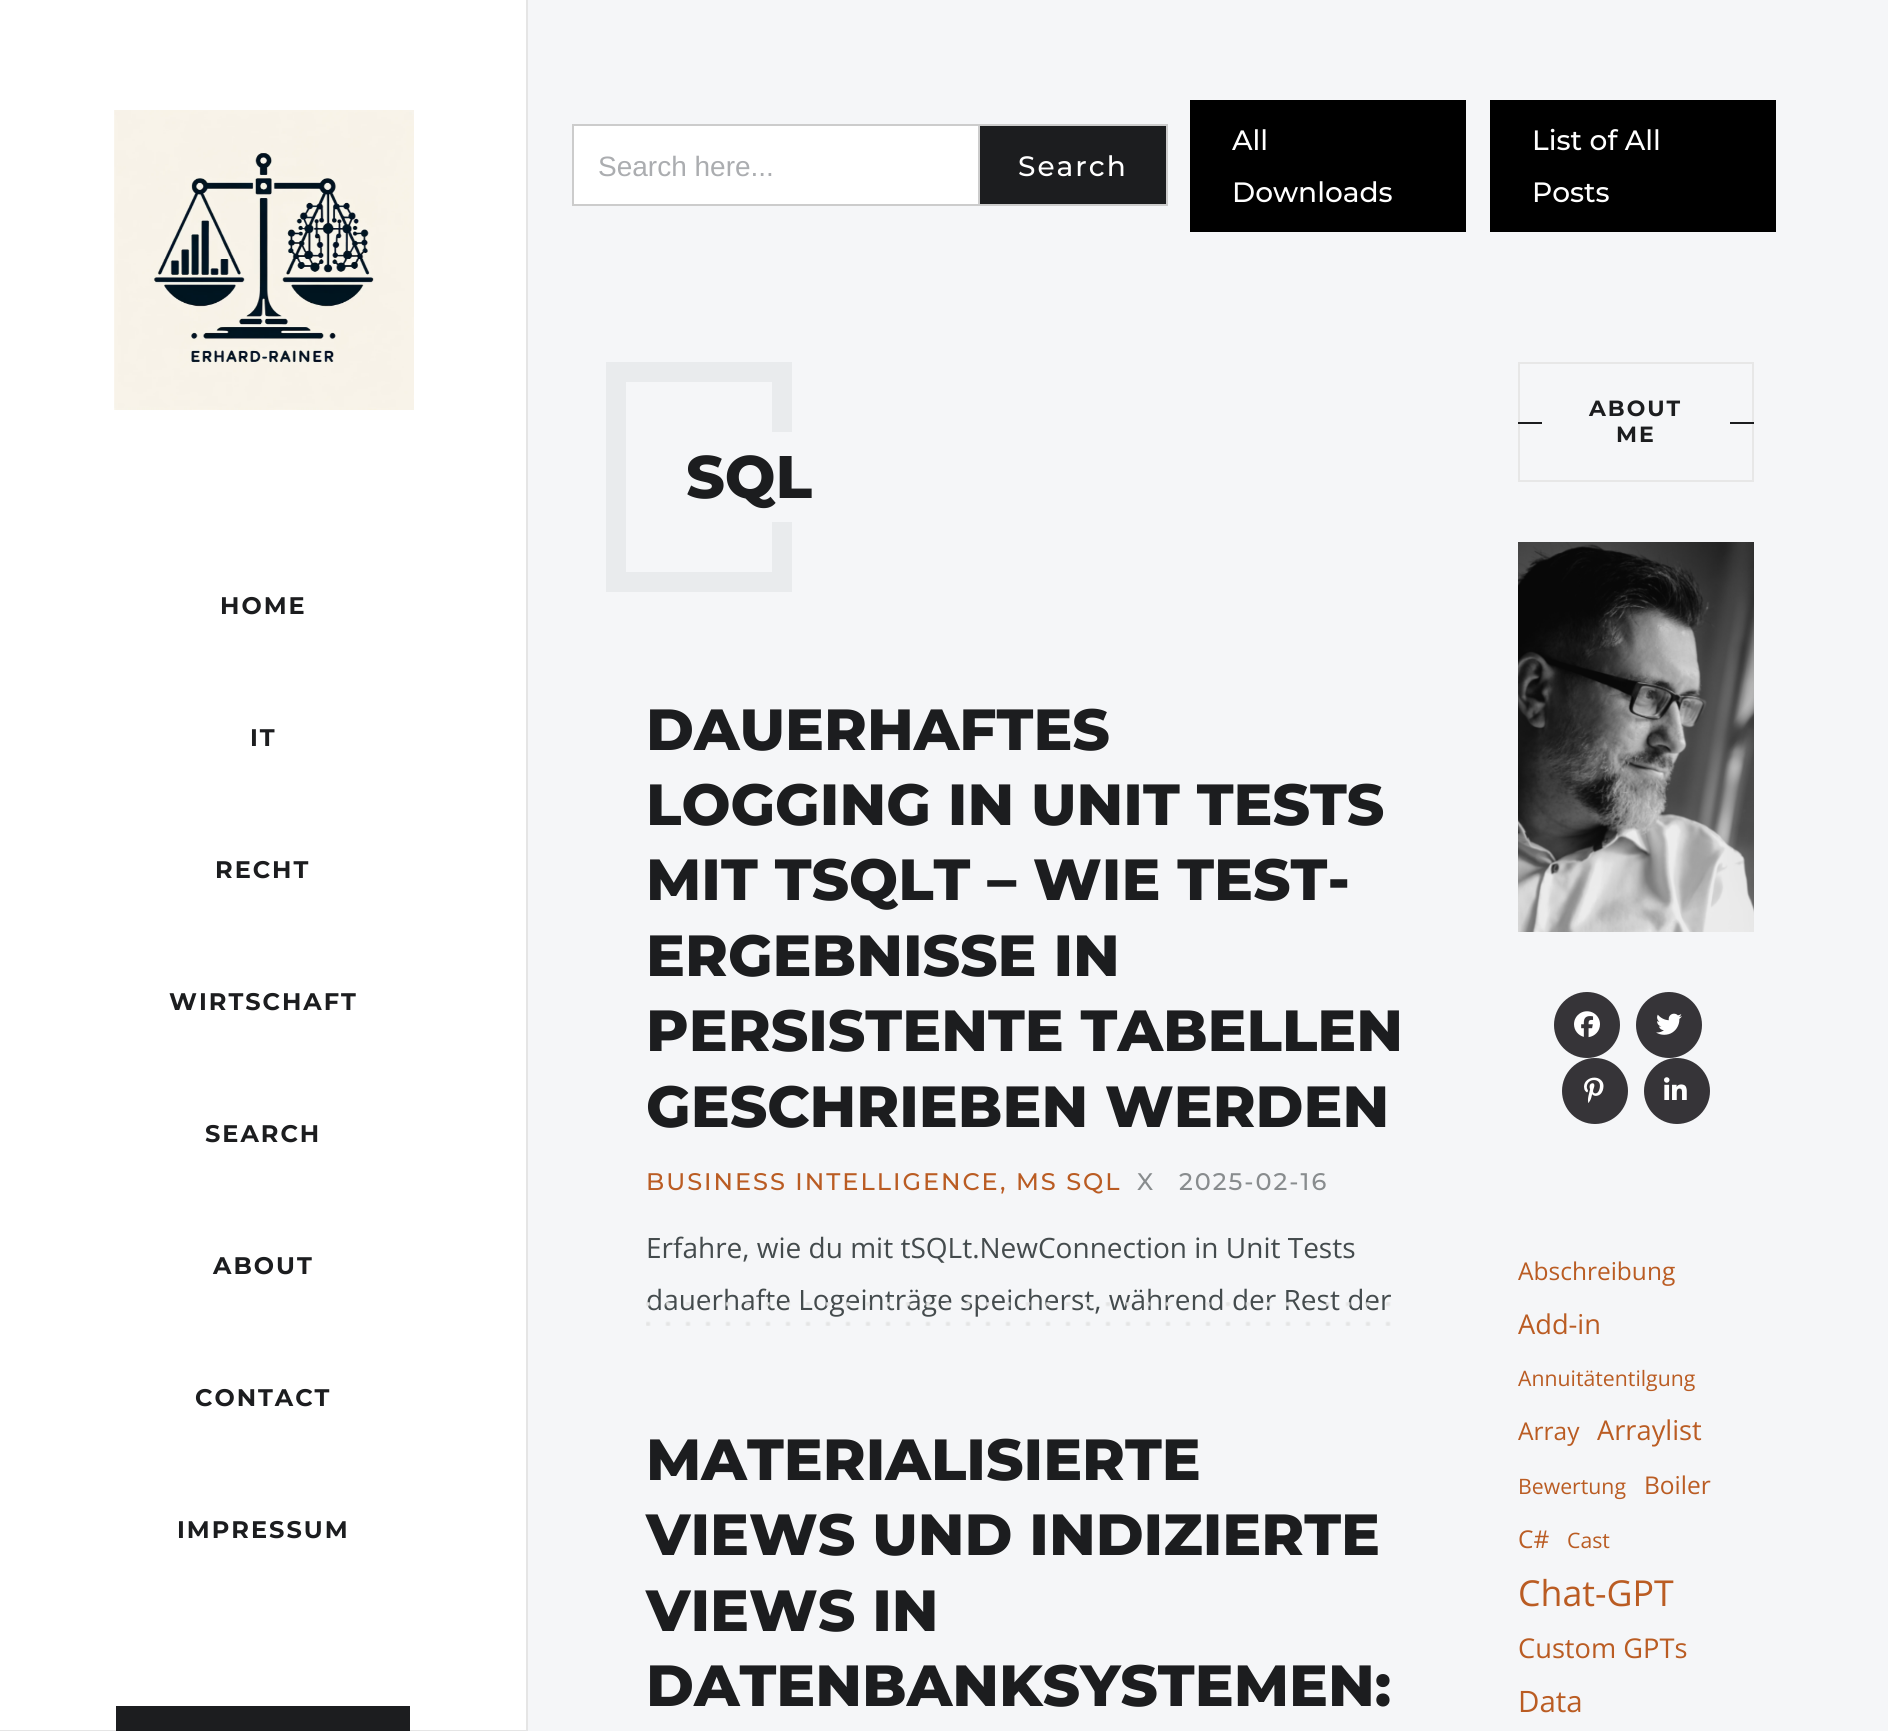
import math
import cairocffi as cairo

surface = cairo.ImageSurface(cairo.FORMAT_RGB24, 1888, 1731)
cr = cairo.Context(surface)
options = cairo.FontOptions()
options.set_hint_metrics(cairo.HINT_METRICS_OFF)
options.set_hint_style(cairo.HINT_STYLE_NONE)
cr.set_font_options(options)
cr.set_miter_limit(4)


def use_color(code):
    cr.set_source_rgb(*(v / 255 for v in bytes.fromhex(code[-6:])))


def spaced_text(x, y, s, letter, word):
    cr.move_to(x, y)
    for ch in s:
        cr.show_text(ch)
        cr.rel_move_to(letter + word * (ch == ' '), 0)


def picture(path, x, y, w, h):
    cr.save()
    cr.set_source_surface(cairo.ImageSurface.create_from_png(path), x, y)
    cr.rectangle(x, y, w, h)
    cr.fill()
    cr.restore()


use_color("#f5f6f8")
cr.paint()
use_color("#ffffff")
cr.rectangle(0, 0, 526, 1730)
cr.fill()
use_color("#e5e5e5")
cr.rectangle(526, 0, 2, 1731)
cr.fill()
cr.rectangle(0, 1730, 528, 1)
cr.fill()
picture("img1.png", 114, 110, 300, 300)
cr.select_font_face("Montserrat", cairo.FONT_SLANT_NORMAL, cairo.FONT_WEIGHT_BOLD)
cr.set_font_size(24)
use_color("#1c1d1f")
spaced_text(220, 614, "HOME", 2, 0)
spaced_text(250, 746, "IT", 2, 0)
spaced_text(215, 878, "RECHT", 2, 0)
spaced_text(169, 1010, "WIRTSCHAFT", 2, 0)
spaced_text(205, 1142, "SEARCH", 2, 0)
spaced_text(213, 1274, "ABOUT", 2, 0)
spaced_text(195, 1406, "CONTACT", 2, 0)
spaced_text(177, 1538, "IMPRESSUM", 2, 0)
cr.rectangle(116, 1706, 294, 25)
cr.fill()
use_color("#ffffff")
cr.rectangle(574, 126, 404, 78)
cr.fill()
cr.rectangle(573, 125, 594, 80)
use_color("#cccccc")
cr.stroke()
cr.select_font_face("Liberation Sans")
cr.set_font_size(28)
use_color("#abadb0")
cr.move_to(598, 176)
cr.show_text("Search here...")
use_color("#1c1d1f")
cr.rectangle(979, 125, 188, 80)
cr.fill_preserve()
use_color("#cccccc")
cr.stroke()
cr.select_font_face("Montserrat Medium")
use_color("#ffffff")
spaced_text(1018, 176, "Search", 2, 0)
use_color("#000000")
cr.rectangle(1190, 100, 276, 132)
cr.fill()
use_color("#ffffff")
cr.move_to(1232, 150)
cr.show_text("All")
cr.move_to(1232, 202)
cr.show_text("Downloads")
use_color("#000000")
cr.rectangle(1490, 100, 286, 132)
cr.fill()
use_color("#ffffff")
cr.move_to(1532, 150)
cr.show_text("List of All")
cr.move_to(1532, 202)
cr.show_text("Posts")
use_color("#e9ebed")
cr.rectangle(626, 362, 146, 20)
cr.fill()
cr.rectangle(626, 572, 146, 20)
cr.fill()
cr.rectangle(606, 362, 20, 230)
cr.fill()
cr.rectangle(772, 362, 20, 70)
cr.fill()
cr.select_font_face("Montserrat ExtraBold")
cr.set_font_size(60)
use_color("#1c1d1f")
cr.move_to(686, 498)
cr.show_text("SQL")
use_color("#e9ebed")
cr.rectangle(772, 522, 20, 70)
cr.fill()
cr.set_font_size(58)
use_color("#1c1d1f")
cr.move_to(646, 750)
cr.show_text("DAUERHAFTES")
cr.move_to(646, 825)
cr.show_text("LOGGING IN UNIT TESTS")
cr.move_to(646, 900)
cr.show_text("MIT TSQLT – WIE TEST-")
cr.move_to(646, 976)
cr.show_text("ERGEBNISSE IN")
cr.move_to(646, 1051)
cr.show_text("PERSISTENTE TABELLEN")
cr.move_to(646, 1127)
cr.show_text("GESCHRIEBEN WERDEN")
cr.select_font_face("Montserrat Medium")
cr.set_font_size(24)
use_color("#ba5c23")
spaced_text(646, 1190, "BUSINESS INTELLIGENCE", 2, 0)
spaced_text(1000, 1190, ", MS SQL", 2, 0)
use_color("#888c8e")
spaced_text(1137, 1190, "X", 2, 0)
spaced_text(1179, 1190, "2025-02-16", 2, 0)
cr.select_font_face("Open Sans")
cr.set_font_size(28)
use_color("#444b4d")
cr.move_to(646, 1258)
cr.show_text("Erfahre, wie du mit tSQLt.NewConnection in Unit Tests")
cr.move_to(646, 1310)
cr.show_text("dauerhafte Logeinträge speicherst, während der Rest der")
picture("img2.png", 646, 1302, 745, 24)
cr.select_font_face("Montserrat ExtraBold")
cr.set_font_size(58)
use_color("#1c1d1f")
cr.move_to(646, 1480)
cr.show_text("MATERIALISIERTE")
cr.move_to(646, 1555)
cr.show_text("VIEWS UND INDIZIERTE")
cr.move_to(646, 1631)
cr.show_text("VIEWS IN")
cr.move_to(646, 1706)
cr.show_text("DATENBANKSYSTEMEN:")
cr.rectangle(1519, 363, 234, 118)
use_color("#e7e7e7")
cr.stroke()
use_color("#1c1d1f")
cr.rectangle(1518, 422, 24, 2)
cr.fill()
cr.select_font_face("Montserrat", cairo.FONT_SLANT_NORMAL, cairo.FONT_WEIGHT_BOLD)
cr.set_font_size(22)
spaced_text(1589, 416, "ABOUT", 2, 0)
spaced_text(1616, 442, "ME", 2, 0)
cr.rectangle(1730, 422, 24, 2)
cr.fill()
picture("img3.png", 1518, 542, 236, 390)
use_color("#363438")
cr.arc(1587, 1025, 33, 0, 2 * math.pi)
cr.fill()
picture("img4.png", 1574, 1011, 26, 27)
cr.arc(1669, 1025, 33, 0, 2 * math.pi)
cr.fill()
picture("img5.png", 1656, 1013, 26, 22)
cr.arc(1595, 1091, 33, 0, 2 * math.pi)
cr.fill()
picture("img6.png", 1584, 1077, 20, 26)
cr.arc(1677, 1091, 33, 0, 2 * math.pi)
cr.fill()
picture("img7.png", 1664, 1077, 23, 23)
cr.select_font_face("Open Sans")
cr.set_font_size(24.5)
use_color("#ba5c23")
cr.move_to(1518, 1280)
cr.show_text("Abschreibung")
cr.set_font_size(27.25)
cr.move_to(1518, 1334)
cr.show_text("Add-in")
cr.set_font_size(21.25)
cr.move_to(1518, 1386)
cr.show_text("Annuitätentilgung")
cr.set_font_size(24.5)
cr.move_to(1518, 1440)
cr.show_text("Array")
cr.set_font_size(27.25)
cr.move_to(1597, 1440)
cr.show_text("Arraylist")
cr.set_font_size(21.25)
cr.move_to(1518, 1494)
cr.show_text("Bewertung")
cr.set_font_size(24.5)
cr.move_to(1644, 1494)
cr.show_text("Boiler")
cr.move_to(1518, 1548)
cr.show_text("C#")
cr.set_font_size(21.25)
cr.move_to(1567, 1548)
cr.show_text("Cast")
cr.set_font_size(35.75)
cr.move_to(1518, 1606)
cr.show_text("Chat-GPT")
cr.set_font_size(27.25)
cr.move_to(1518, 1658)
cr.show_text("Custom GPTs")
cr.set_font_size(29.5)
cr.move_to(1518, 1712)
cr.show_text("Data")
surface.write_to_png("result.png")
